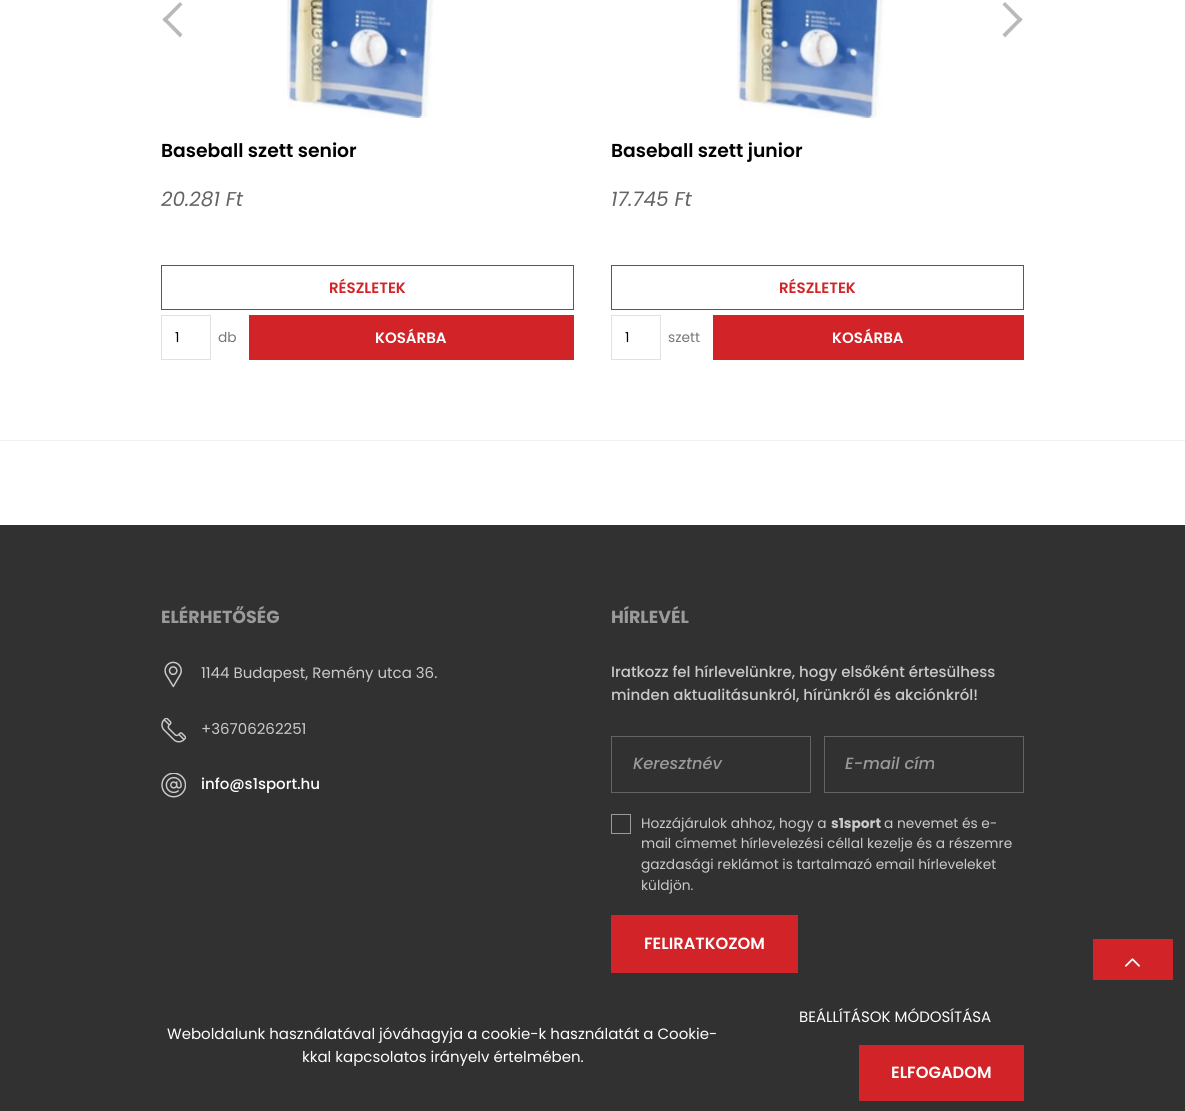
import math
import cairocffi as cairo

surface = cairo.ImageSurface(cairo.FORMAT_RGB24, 1185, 1111)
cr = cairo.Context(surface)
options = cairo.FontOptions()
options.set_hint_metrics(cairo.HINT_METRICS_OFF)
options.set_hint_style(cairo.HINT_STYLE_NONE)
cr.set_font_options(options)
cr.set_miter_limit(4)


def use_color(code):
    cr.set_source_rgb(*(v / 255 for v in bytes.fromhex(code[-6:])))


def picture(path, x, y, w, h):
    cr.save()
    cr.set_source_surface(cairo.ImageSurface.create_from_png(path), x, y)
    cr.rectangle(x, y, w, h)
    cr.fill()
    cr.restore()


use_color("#ffffff")
cr.paint()
use_color("#b9b9b9")
cr.new_path()
cr.move_to(182.5, 34.5)
cr.line_to(180, 37.5)
cr.line_to(162.5, 19.5)
cr.line_to(165, 17)
cr.close_path()
cr.fill()
cr.new_path()
cr.move_to(182.5, 4.5)
cr.line_to(165, 22.5)
cr.line_to(162.5, 19.5)
cr.line_to(180, 2)
cr.close_path()
cr.fill()
cr.new_path()
cr.move_to(1002.5, 4.5)
cr.line_to(1005, 2)
cr.line_to(1022.5, 19.5)
cr.line_to(1020, 22.5)
cr.close_path()
cr.fill()
cr.new_path()
cr.move_to(1002.5, 34.5)
cr.line_to(1020, 17)
cr.line_to(1022.5, 19.5)
cr.line_to(1005, 37.5)
cr.close_path()
cr.fill()
picture("img1.png", 287, 0, 147, 118)
cr.select_font_face("Poppins SemiBold")
cr.set_font_size(18.75)
use_color("#000000")
cr.move_to(161, 157)
cr.show_text("Baseball szett senior")
cr.select_font_face("Poppins", cairo.FONT_SLANT_ITALIC)
cr.set_font_size(20)
use_color("#646464")
cr.move_to(161, 206)
cr.show_text("20.281 Ft")
cr.rectangle(161.5, 265.5, 412, 44)
use_color("#d22328")
cr.set_line_width(1)
cr.stroke()
cr.select_font_face("Poppins SemiBold")
cr.set_font_size(15)
cr.move_to(329, 293)
cr.show_text("RÉSZLETEK")
cr.rectangle(161.5, 315.5, 49, 44)
use_color("#dee2e6")
cr.stroke()
cr.select_font_face("Poppins")
cr.set_font_size(13.75)
use_color("#000000")
cr.move_to(175, 342)
cr.show_text("1")
use_color("#767676")
cr.move_to(218, 342)
cr.show_text("db")
use_color("#d22328")
cr.rectangle(249, 315, 325, 45)
cr.fill()
cr.select_font_face("Poppins SemiBold")
cr.set_font_size(15)
use_color("#ffffff")
cr.move_to(375, 343)
cr.show_text("KOSÁRBA")
picture("img2.png", 737, 0, 147, 118)
cr.set_font_size(18.75)
use_color("#000000")
cr.move_to(611, 157)
cr.show_text("Baseball szett junior")
cr.select_font_face("Poppins", cairo.FONT_SLANT_ITALIC)
cr.set_font_size(20)
use_color("#646464")
cr.move_to(611, 206)
cr.show_text("17.745 Ft")
cr.rectangle(611.5, 265.5, 412, 44)
use_color("#d22328")
cr.stroke()
cr.select_font_face("Poppins SemiBold")
cr.set_font_size(15)
cr.move_to(779, 293)
cr.show_text("RÉSZLETEK")
cr.rectangle(611.5, 315.5, 49, 44)
use_color("#dee2e6")
cr.stroke()
cr.select_font_face("Poppins")
cr.set_font_size(13.75)
use_color("#000000")
cr.move_to(625, 342)
cr.show_text("1")
use_color("#767676")
cr.move_to(668, 342)
cr.show_text("szett")
use_color("#d22328")
cr.rectangle(713, 315, 311, 45)
cr.fill()
cr.select_font_face("Poppins SemiBold")
cr.set_font_size(15)
use_color("#ffffff")
cr.move_to(832, 343)
cr.show_text("KOSÁRBA")
use_color("#eff0f1")
cr.rectangle(0, 440, 1185, 1)
cr.fill()
use_color("#313131")
cr.rectangle(0, 525, 1185, 586)
cr.fill()
cr.select_font_face("Poppins", cairo.FONT_SLANT_NORMAL, cairo.FONT_WEIGHT_BOLD)
cr.set_font_size(17.5)
use_color("#9a9a9a")
cr.move_to(161, 623)
cr.show_text("ELÉRHETŐSÉG")
picture("img3.png", 164, 661, 18, 27)
cr.select_font_face("Poppins")
cr.set_font_size(15)
use_color("#cacaca")
cr.move_to(201, 678)
cr.show_text("1144 Budapest, Remény utca 36.")
picture("img4.png", 161, 718, 25, 25)
cr.move_to(201, 734)
cr.show_text("+36706262251")
picture("img5.png", 161, 773, 25, 25)
cr.select_font_face("Poppins Medium")
use_color("#ffffff")
cr.move_to(201, 789)
cr.show_text("info@s1sport.hu")
cr.select_font_face("Poppins", cairo.FONT_SLANT_NORMAL, cairo.FONT_WEIGHT_BOLD)
cr.set_font_size(17.5)
use_color("#9a9a9a")
cr.move_to(611, 623)
cr.show_text("HÍRLEVÉL")
cr.select_font_face("Poppins Medium")
cr.set_font_size(15)
use_color("#cacaca")
cr.move_to(611, 677)
cr.show_text("Iratkozz fel hírlevelünkre, hogy elsőként értesülhess")
cr.move_to(611, 700)
cr.show_text("minden aktualitásunkról, hírünkről és akciónkról!")
cr.rectangle(611.5, 736.5, 199, 56)
use_color("#646464")
cr.stroke()
cr.select_font_face("Poppins Medium", cairo.FONT_SLANT_ITALIC)
cr.set_font_size(16.25)
use_color("#9a9a9a")
cr.move_to(633, 769)
cr.show_text("Keresztnév")
cr.rectangle(824.5, 736.5, 199, 56)
use_color("#646464")
cr.stroke()
use_color("#9a9a9a")
cr.move_to(845, 769)
cr.show_text("E-mail cím")
cr.rectangle(611.5, 814.5, 19, 19)
cr.stroke()
cr.select_font_face("Poppins")
cr.set_font_size(13.75)
use_color("#cacaca")
cr.move_to(641, 828)
cr.show_text("Hozzájárulok ahhoz, hogy a")
cr.select_font_face("Poppins", cairo.FONT_SLANT_NORMAL, cairo.FONT_WEIGHT_BOLD)
cr.move_to(831, 828)
cr.show_text("s1sport")
cr.select_font_face("Poppins")
cr.move_to(884, 828)
cr.show_text("a nevemet és e-")
cr.move_to(641, 848)
cr.show_text("mail címemet hírlevelezési céllal kezelje és a részemre")
cr.move_to(641, 869)
cr.show_text("gazdasági reklámot is tartalmazó email hírleveleket")
cr.move_to(641, 890)
cr.show_text("küldjön.")
use_color("#d22328")
cr.rectangle(611, 915, 187, 58)
cr.fill()
cr.select_font_face("Poppins SemiBold")
cr.set_font_size(16.25)
use_color("#ffffff")
cr.move_to(644, 949)
cr.show_text("FELIRATKOZOM")
use_color("#d22328")
cr.rectangle(1093, 939, 80, 41)
cr.fill()
picture("img6.png", 1125, 958, 15, 9)
cr.select_font_face("Poppins")
cr.set_font_size(15)
use_color("#ffffff")
cr.move_to(167, 1039)
cr.show_text("Weboldalunk használatával jóváhagyja a cookie-k használatát a Cookie-")
cr.move_to(302, 1062)
cr.show_text("kkal kapcsolatos irányelv értelmében.")
cr.move_to(799, 1022)
cr.show_text("BEÁLLÍTÁSOK MÓDOSÍTÁSA")
use_color("#d22328")
cr.rectangle(859, 1045, 165, 56)
cr.fill()
cr.select_font_face("Poppins SemiBold")
cr.set_font_size(16.25)
use_color("#ffffff")
cr.move_to(891, 1078)
cr.show_text("ELFOGADOM")
surface.write_to_png("result.png")
